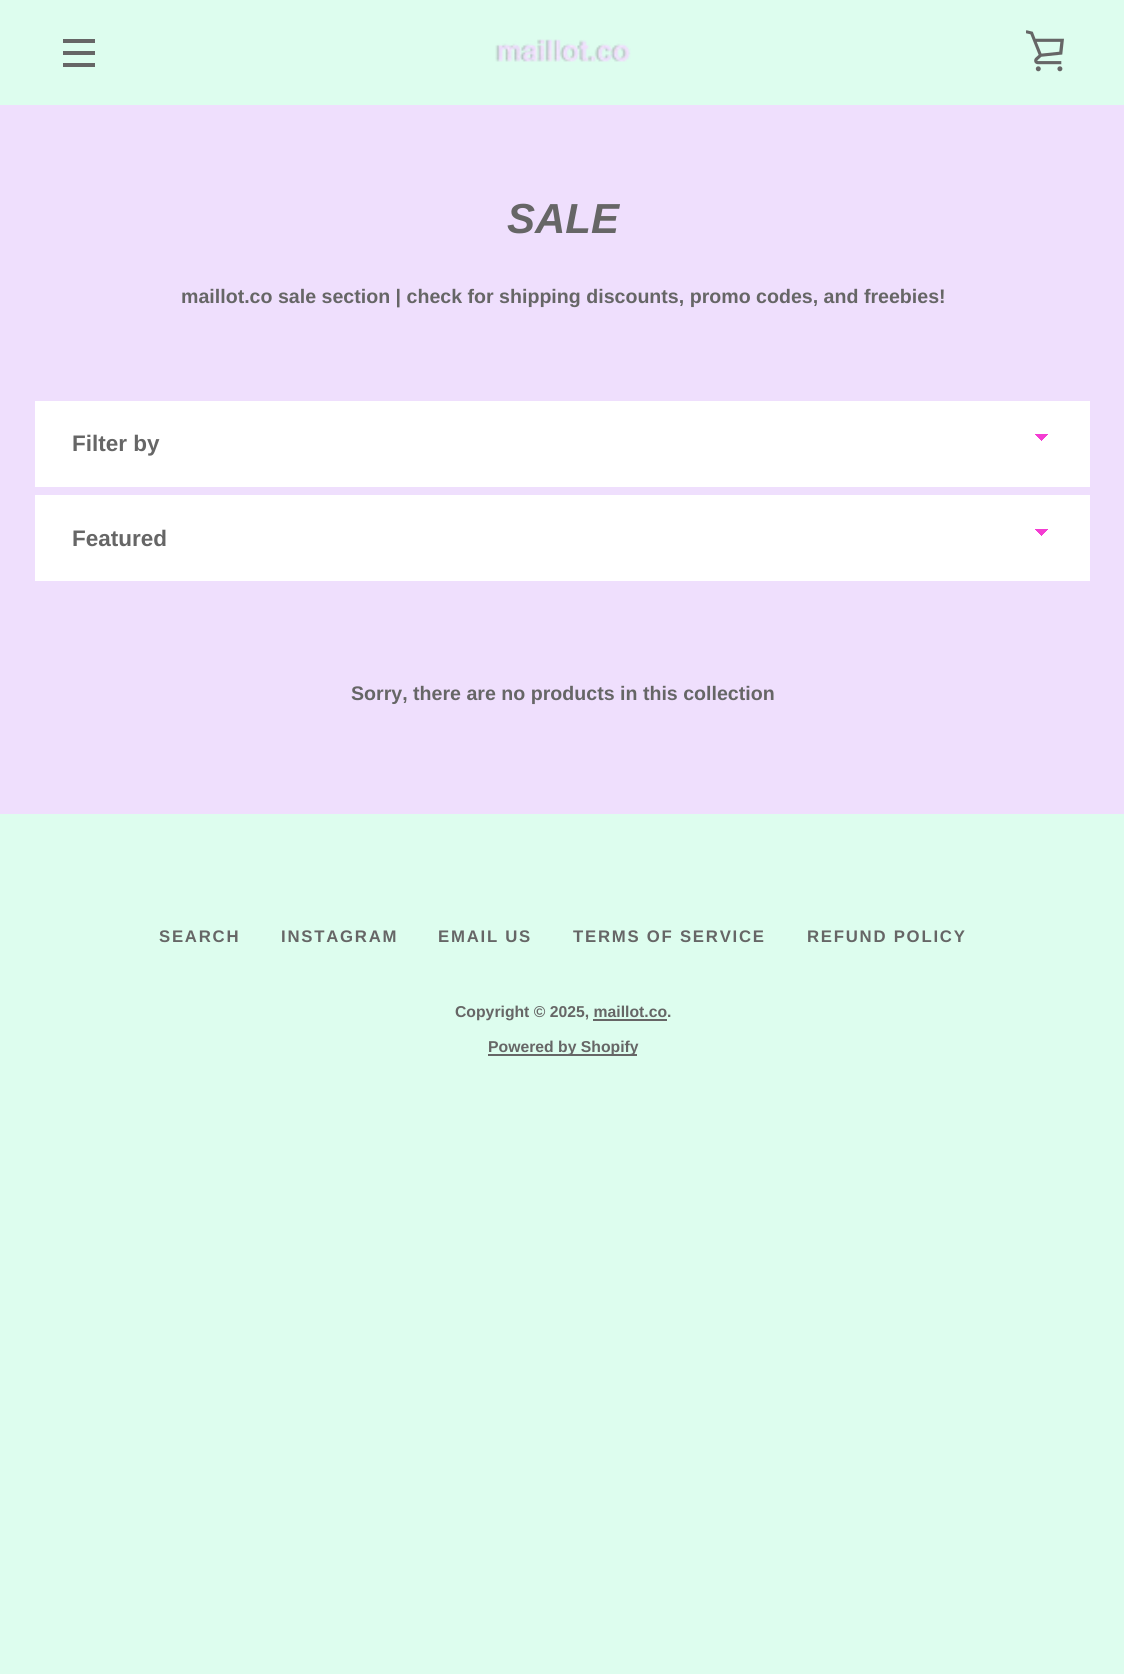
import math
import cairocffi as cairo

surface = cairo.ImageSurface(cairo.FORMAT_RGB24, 1124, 1674)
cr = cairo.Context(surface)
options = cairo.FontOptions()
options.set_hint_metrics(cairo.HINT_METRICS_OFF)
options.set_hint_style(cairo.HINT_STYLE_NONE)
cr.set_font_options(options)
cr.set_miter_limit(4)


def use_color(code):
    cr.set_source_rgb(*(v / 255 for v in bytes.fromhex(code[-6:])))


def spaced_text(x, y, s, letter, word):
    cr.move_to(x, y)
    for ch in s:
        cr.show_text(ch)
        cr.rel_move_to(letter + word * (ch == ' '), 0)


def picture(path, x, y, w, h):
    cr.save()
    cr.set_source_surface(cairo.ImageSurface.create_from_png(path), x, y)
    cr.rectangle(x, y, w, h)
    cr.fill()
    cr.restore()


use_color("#ddfdee")
cr.paint()
use_color("#efdffd")
cr.rectangle(0, 105, 1124, 709)
cr.fill()
use_color("#666666")
cr.rectangle(63, 39, 32, 4)
cr.fill()
cr.rectangle(63, 51, 32, 4)
cr.fill()
cr.rectangle(63, 63, 32, 4)
cr.fill()
picture("img1.png", 495, 39, 136, 23)
picture("img2.png", 1026, 30, 38, 42)
cr.select_font_face("Liberation Sans", cairo.FONT_SLANT_ITALIC, cairo.FONT_WEIGHT_BOLD)
cr.set_font_size(42)
cr.move_to(507, 233)
cr.show_text("SALE")
cr.select_font_face("Liberation Sans", cairo.FONT_SLANT_NORMAL, cairo.FONT_WEIGHT_BOLD)
cr.set_font_size(19.6)
cr.move_to(181, 303)
cr.show_text("maillot.co sale section | check for shipping discounts, promo codes, and freebies!")
use_color("#ffffff")
cr.rectangle(35, 401, 1055, 86)
cr.fill()
gradient = cairo.LinearGradient(1041, 434, 1048, 441)
gradient.add_color_stop_rgba(0.5, 0.957, 0.239, 0.824, 1)
gradient.add_color_stop_rgba(0.5, 1, 1, 1, 1)
cr.set_source(gradient)
cr.rectangle(1041, 434, 7, 7)
cr.fill()
gradient = cairo.LinearGradient(1034, 441, 1041, 434)
gradient.add_color_stop_rgba(0.5, 1, 1, 1, 1)
gradient.add_color_stop_rgba(0.5, 0.957, 0.239, 0.824, 1)
cr.set_source(gradient)
cr.rectangle(1034, 434, 7, 6)
cr.fill()
cr.set_font_size(22.5)
use_color("#666666")
cr.move_to(72, 451)
cr.show_text("Filter by")
use_color("#ffffff")
cr.rectangle(35, 495, 1055, 86)
cr.fill()
gradient = cairo.LinearGradient(1041, 529, 1048, 536)
gradient.add_color_stop_rgba(0.5, 0.957, 0.239, 0.824, 1)
gradient.add_color_stop_rgba(0.5, 1, 1, 1, 1)
cr.set_source(gradient)
cr.rectangle(1041, 529, 7, 7)
cr.fill()
gradient = cairo.LinearGradient(1034, 536, 1041, 529)
gradient.add_color_stop_rgba(0.5, 1, 1, 1, 1)
gradient.add_color_stop_rgba(0.5, 0.957, 0.239, 0.824, 1)
cr.set_source(gradient)
cr.rectangle(1034, 529, 7, 6)
cr.fill()
use_color("#666666")
cr.move_to(72, 546)
cr.show_text("Featured")
cr.set_font_size(19.6)
cr.move_to(351, 700)
cr.show_text("Sorry, there are no products in this collection")
cr.set_font_size(16.75)
spaced_text(159, 942, "SEARCH", 1.75, 0)
spaced_text(281, 942, "INSTAGRAM", 1.75, 0)
spaced_text(438, 942, "EMAIL US", 1.75, 0)
spaced_text(573, 942, "TERMS OF SERVICE", 1.75, 0)
spaced_text(807, 942, "REFUND POLICY", 1.75, 0)
cr.set_font_size(15.75)
cr.move_to(455, 1017)
cr.show_text("Copyright © 2025, maillot.co.")
cr.rectangle(593, 1019, 74, 2)
cr.fill()
cr.rectangle(488, 1054, 149, 2)
cr.fill()
cr.move_to(488, 1052)
cr.show_text("Powered by Shopify")
surface.write_to_png("result.png")
